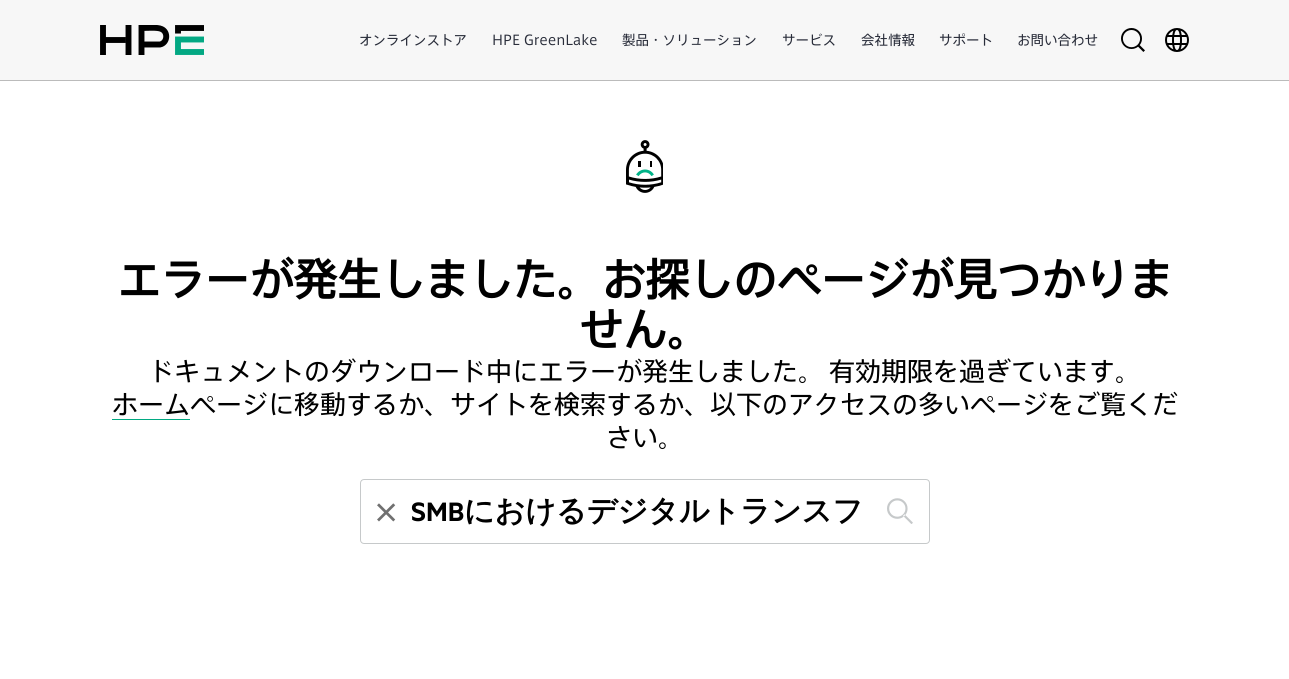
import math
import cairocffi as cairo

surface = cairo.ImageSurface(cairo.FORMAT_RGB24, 1289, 679)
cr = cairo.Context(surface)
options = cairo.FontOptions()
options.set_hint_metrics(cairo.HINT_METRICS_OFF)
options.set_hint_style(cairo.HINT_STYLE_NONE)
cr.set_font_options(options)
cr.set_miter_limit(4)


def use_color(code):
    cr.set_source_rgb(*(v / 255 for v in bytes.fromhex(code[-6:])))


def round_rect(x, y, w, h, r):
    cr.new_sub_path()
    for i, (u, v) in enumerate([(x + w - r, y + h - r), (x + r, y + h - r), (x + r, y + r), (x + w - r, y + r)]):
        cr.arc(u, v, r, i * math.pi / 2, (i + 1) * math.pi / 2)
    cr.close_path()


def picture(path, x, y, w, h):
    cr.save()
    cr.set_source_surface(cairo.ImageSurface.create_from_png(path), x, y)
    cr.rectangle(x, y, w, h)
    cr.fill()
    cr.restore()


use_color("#ffffff")
cr.paint()
use_color("#bbbbbb")
cr.rectangle(0, 80, 1289, 1)
cr.fill()
use_color("#f7f7f7")
cr.rectangle(0, 0, 1289, 80)
cr.fill()
cr.save()
cr.rectangle(100, 25, 104, 30)
cr.clip()
cr.new_path()
cr.move_to(103, 55)
cr.line_to(103, 25)
cr.move_to(128.5, 55)
cr.line_to(128.5, 25)
cr.move_to(103, 40)
cr.line_to(125.5, 40)
cr.move_to(141.5, 55)
cr.line_to(141.5, 25)
cr.move_to(141.5, 28)
cr.curve_to(146, 28, 157.5, 27, 161.5, 29)
cr.curve_to(168.5, 32, 167.5, 43, 160, 44.5)
cr.line_to(141.5, 44.5)
cr.move_to(178, 33.5)
cr.line_to(178, 28)
cr.line_to(204, 28)
use_color("#000000")
cr.set_line_width(5.9)
cr.stroke()
cr.restore()
cr.new_path()
cr.move_to(204, 52)
cr.line_to(178, 52)
cr.line_to(178, 39.5)
cr.line_to(204, 39.5)
use_color("#03a883")
cr.set_line_width(5.9)
cr.stroke()
cr.select_font_face("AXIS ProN")
cr.set_font_size(13.5)
use_color("#292d3a")
cr.move_to(359, 45)
cr.show_text("オンラインストア")
cr.move_to(492, 45)
cr.show_text("HPE GreenLake")
cr.move_to(622, 45)
cr.show_text("製品・ソリューション")
cr.move_to(782, 45)
cr.show_text("サービス")
cr.move_to(861, 45)
cr.show_text("会社情報")
cr.move_to(939, 45)
cr.show_text("サポート")
cr.move_to(1017, 45)
cr.show_text("お問い合わせ")
picture("img1.png", 1121, 28, 24, 24)
picture("img2.png", 1165, 28, 24, 24)
picture("img3.png", 626, 140, 37, 53)
cr.select_font_face("AXIS ProN", cairo.FONT_SLANT_NORMAL, cairo.FONT_WEIGHT_BOLD)
cr.set_font_size(44)
use_color("#000000")
cr.move_to(117, 296)
cr.show_text("エラーが発生しました。お探しのページが見つかりま")
cr.move_to(579, 346)
cr.show_text("せん。")
cr.select_font_face("AXIS ProN")
cr.set_font_size(26)
cr.move_to(148, 381)
cr.show_text("ドキュメントのダウンロード中にエラーが発生しました。")
cr.move_to(829, 381)
cr.show_text("有効期限を過ぎています。")
cr.move_to(112, 414)
cr.show_text("ホームページに移動するか、サイトを検索するか、以下のアクセスの多いページをご覧くだ")
use_color("#01a982")
cr.rectangle(112, 419, 78, 1)
cr.fill()
use_color("#000000")
cr.move_to(606, 447)
cr.show_text("さい。")
round_rect(360.5, 479.5, 569, 64, 3.5)
use_color("#c6c9ca")
cr.set_line_width(1)
cr.stroke()
picture("img4.png", 377, 503, 19, 19)
cr.select_font_face("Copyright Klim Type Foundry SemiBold")
cr.set_font_size(30)
use_color("#000000")
cr.move_to(411, 521)
cr.show_text("SMB")
cr.select_font_face("WenQuanYi Zen Hei", cairo.FONT_SLANT_NORMAL, cairo.FONT_WEIGHT_BOLD)
cr.move_to(464, 521)
cr.show_text("におけるデジタルトランスフ")
picture("img5.png", 887, 498, 26, 26)
surface.write_to_png("result.png")
